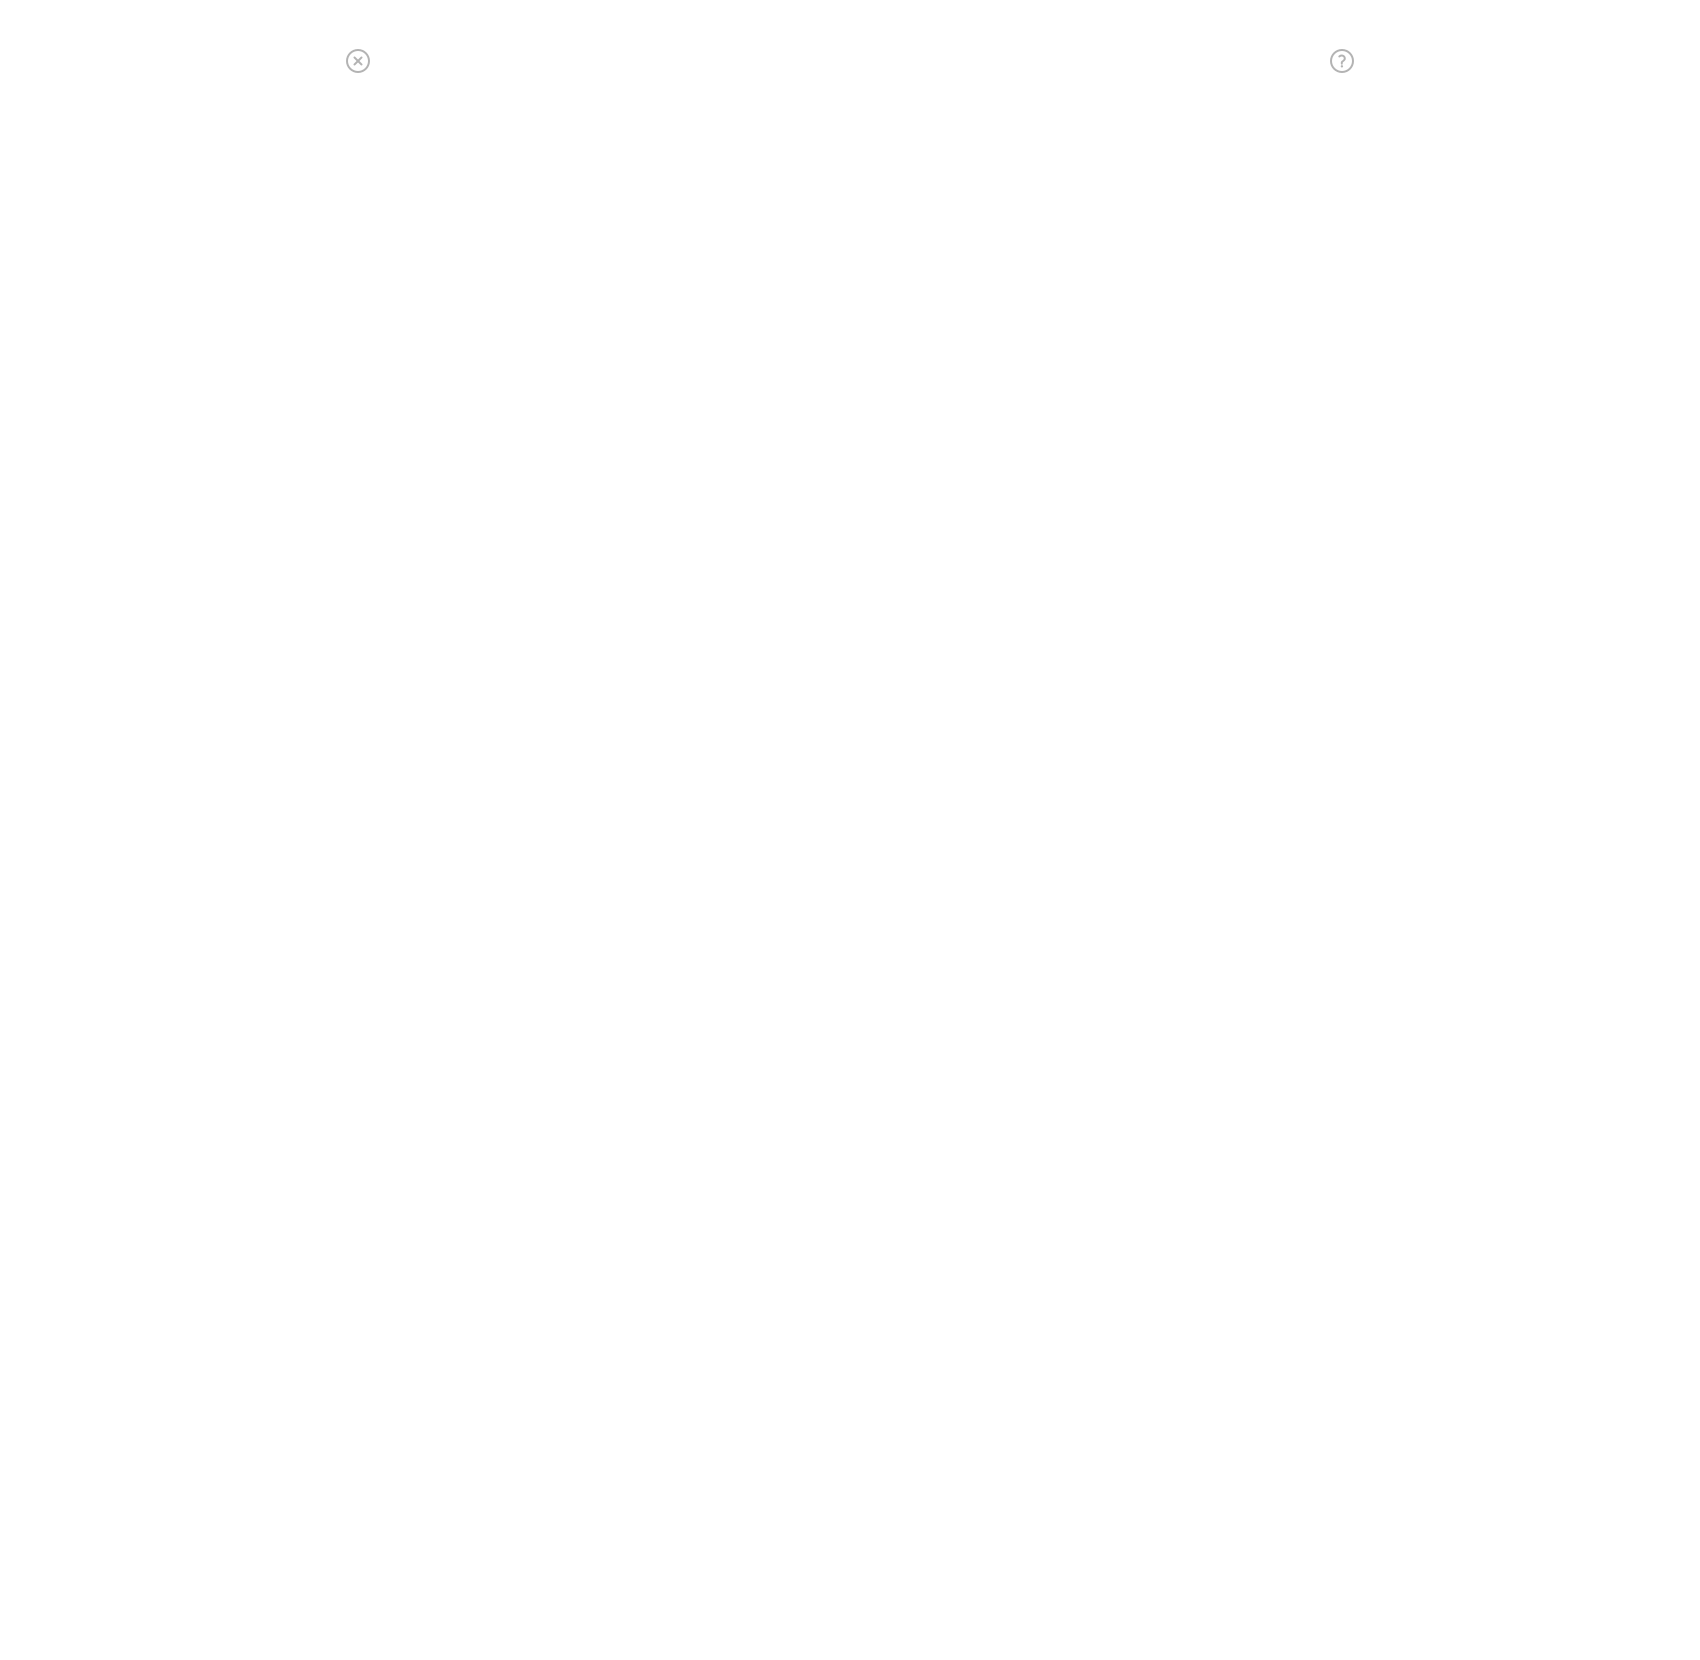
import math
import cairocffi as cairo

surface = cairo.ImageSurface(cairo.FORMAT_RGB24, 1700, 1660)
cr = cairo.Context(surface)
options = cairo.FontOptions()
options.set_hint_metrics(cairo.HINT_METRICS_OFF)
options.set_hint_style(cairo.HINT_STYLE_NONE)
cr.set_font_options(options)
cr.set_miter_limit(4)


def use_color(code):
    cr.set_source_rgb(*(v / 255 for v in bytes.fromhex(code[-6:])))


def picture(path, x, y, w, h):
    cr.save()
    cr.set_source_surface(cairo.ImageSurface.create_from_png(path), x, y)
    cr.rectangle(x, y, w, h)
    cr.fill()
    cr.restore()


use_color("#ffffff")
cr.paint()
picture("img1.png", 346, 49, 24, 24)
picture("img2.png", 1330, 49, 24, 24)
surface.write_to_png("result.png")
